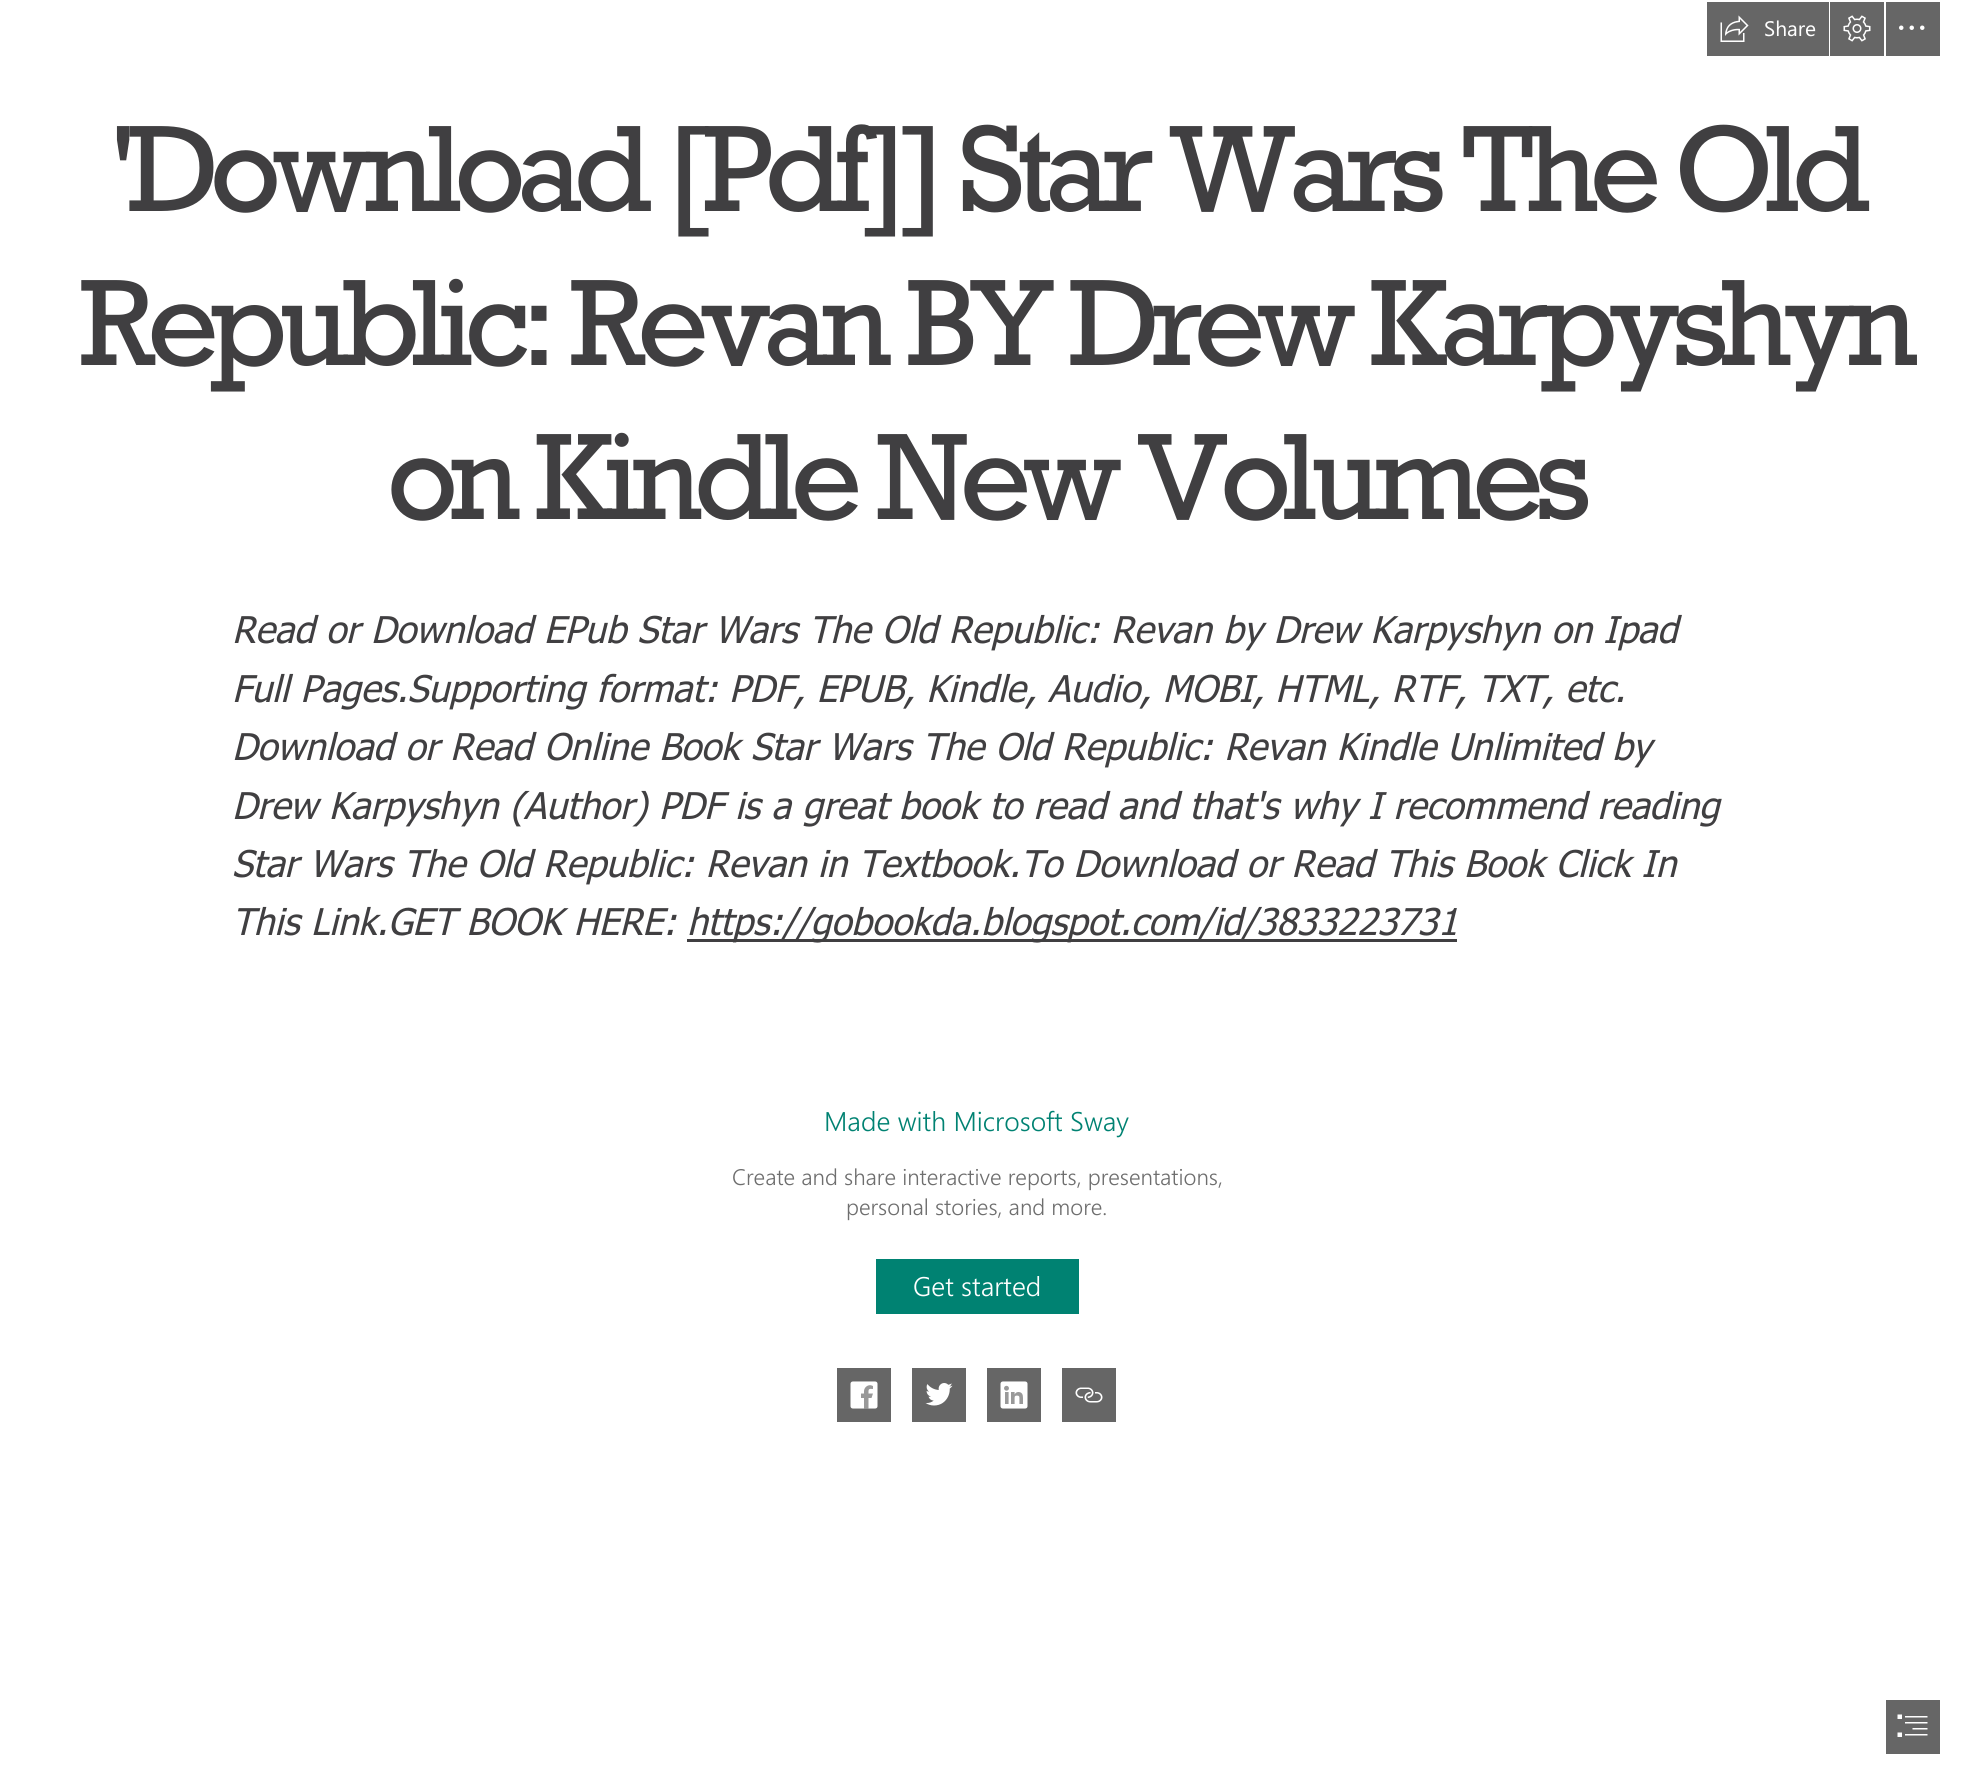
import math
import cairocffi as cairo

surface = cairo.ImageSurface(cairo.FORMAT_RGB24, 1969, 1785)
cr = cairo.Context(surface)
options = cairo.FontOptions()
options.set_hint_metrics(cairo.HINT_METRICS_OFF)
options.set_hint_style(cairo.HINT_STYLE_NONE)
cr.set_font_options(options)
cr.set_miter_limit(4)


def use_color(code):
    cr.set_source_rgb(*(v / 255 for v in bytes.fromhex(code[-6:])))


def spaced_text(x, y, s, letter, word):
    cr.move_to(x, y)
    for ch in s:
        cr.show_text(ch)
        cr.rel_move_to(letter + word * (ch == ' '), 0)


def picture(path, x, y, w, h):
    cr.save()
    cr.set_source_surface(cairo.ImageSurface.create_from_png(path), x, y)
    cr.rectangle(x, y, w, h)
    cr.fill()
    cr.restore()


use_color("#ffffff")
cr.paint()
use_color("#666666")
cr.rectangle(1707, 2, 122, 54)
cr.fill()
picture("img1.png", 1720, 15, 29, 27)
cr.select_font_face("Segoe UI")
cr.set_font_size(21)
use_color("#ffffff")
cr.move_to(1764, 36)
cr.show_text("Share")
use_color("#666666")
cr.rectangle(1830, 2, 54, 54)
cr.fill()
picture("img2.png", 1843, 15, 28, 27)
cr.rectangle(1886, 2, 54, 54)
cr.fill()
picture("img3.png", 1899, 25, 26, 5)
cr.select_font_face("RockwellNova")
cr.set_font_size(115.4)
use_color("#403f41")
spaced_text(109, 211, "'Download [Pdf]] Star Wars The Old", -9.2, 0)
spaced_text(80, 365, "Republic: Revan BY Drew Karpyshyn", -9.2, 0)
spaced_text(387, 519, "on Kindle New Volumes", -9.2, 0)
cr.select_font_face("Tahoma", cairo.FONT_SLANT_ITALIC)
cr.set_font_size(36.95)
cr.move_to(232, 643)
cr.show_text("Read or Download EPub Star Wars The Old Republic: Revan by Drew Karpyshyn on Ipad")
cr.move_to(232, 702)
cr.show_text("Full Pages.Supporting format: PDF, EPUB, Kindle, Audio, MOBI, HTML, RTF, TXT, etc.")
cr.move_to(232, 760)
cr.show_text("Download or Read Online Book Star Wars The Old Republic: Revan Kindle Unlimited by")
cr.move_to(232, 819)
cr.show_text("Drew Karpyshyn (Author) PDF is a great book to read and that's why I recommend reading")
cr.move_to(232, 877)
cr.show_text("Star Wars The Old Republic: Revan in Textbook.To Download or Read This Book Click In")
cr.move_to(232, 935)
cr.show_text("This Link.GET BOOK HERE:")
cr.rectangle(687, 939, 770, 3)
cr.fill()
cr.move_to(687, 935)
cr.show_text("https://gobookda.blogspot.com/id/3833223731")
cr.select_font_face("Segoe UI Light")
cr.set_font_size(27)
use_color("#008272")
cr.move_to(824, 1131)
cr.show_text("Made with Microsoft Sway")
cr.set_font_size(22.5)
use_color("#6e6e6e")
cr.move_to(732, 1185)
cr.show_text("Create and share interactive reports, presentations,")
cr.move_to(846, 1215)
cr.show_text("personal stories, and more.")
use_color("#008272")
cr.rectangle(876, 1259, 203, 55)
cr.fill()
cr.set_font_size(27)
use_color("#ffffff")
cr.move_to(913, 1296)
cr.show_text("Get started")
use_color("#666666")
cr.rectangle(837, 1368, 54, 54)
cr.fill()
picture("img4.png", 850, 1381, 28, 28)
picture("img5.png", 861, 1385, 12, 24)
cr.rectangle(912, 1368, 54, 54)
cr.fill()
picture("img6.png", 925, 1383, 28, 23)
cr.rectangle(987, 1368, 54, 54)
cr.fill()
picture("img4.png", 1000, 1381, 28, 28)
picture("img7.png", 1004, 1385, 19, 19)
cr.rectangle(1062, 1368, 54, 54)
cr.fill()
picture("img8.png", 1075, 1387, 28, 16)
cr.rectangle(1886, 1700, 54, 54)
cr.fill()
picture("img9.png", 1897, 1714, 31, 23)
surface.write_to_png("result.png")
